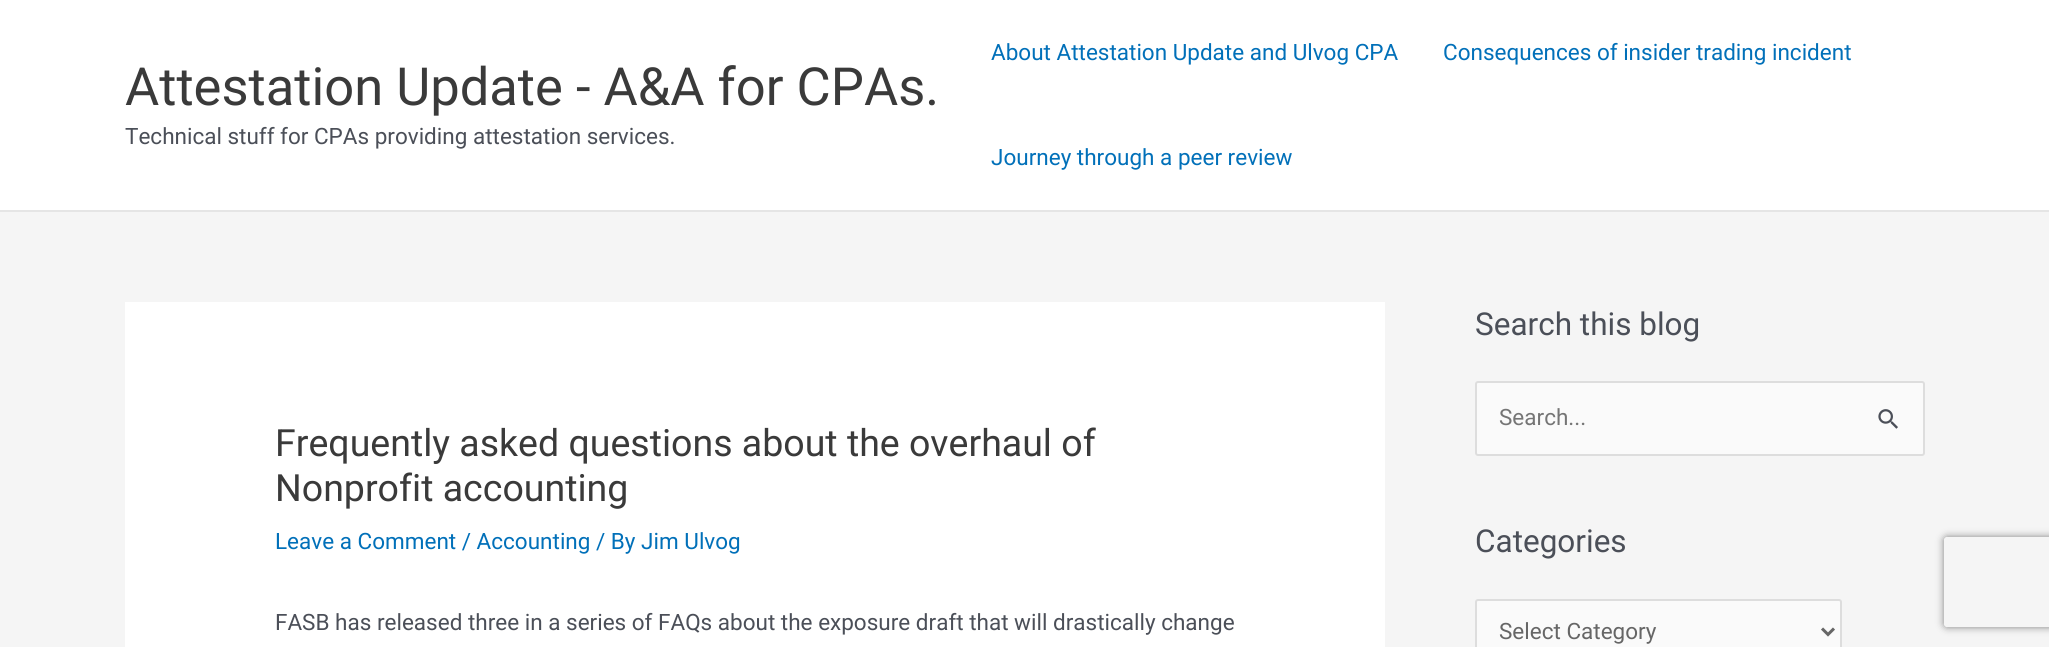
import math
import cairocffi as cairo

surface = cairo.ImageSurface(cairo.FORMAT_RGB24, 2049, 647)
cr = cairo.Context(surface)
options = cairo.FontOptions()
options.set_hint_metrics(cairo.HINT_METRICS_OFF)
options.set_hint_style(cairo.HINT_STYLE_NONE)
cr.set_font_options(options)
cr.set_miter_limit(4)


def use_color(code):
    cr.set_source_rgb(*(v / 255 for v in bytes.fromhex(code[-6:])))


def round_rect(x, y, w, h, r):
    cr.new_sub_path()
    for i, (u, v) in enumerate([(x + w - r, y + h - r), (x + r, y + h - r), (x + r, y + r), (x + w - r, y + r)]):
        cr.arc(u, v, r, i * math.pi / 2, (i + 1) * math.pi / 2)
    cr.close_path()


def shadow(x, y, w, h, r, blur, alpha):
    cr.push_group_with_content(cairo.CONTENT_ALPHA)
    cr.set_operator(cairo.OPERATOR_SOURCE)
    for i in range(15, -16, -2):
        e = blur * i / 6
        if min(w, h) + 2 * e > 0:
            cr.set_source_rgba(0, 0, 0, alpha * math.erfc((i - 1) / 8.5) / 2)
            round_rect(x - e, y - e, w + 2 * e, h + 2 * e, max(0, min(r + e + blur * .6, min(w, h) / 2 + e)))
            cr.fill()
    cr.mask(cr.pop_group())


def picture(path, x, y, w, h):
    cr.save()
    cr.set_source_surface(cairo.ImageSurface.create_from_png(path), x, y)
    cr.rectangle(x, y, w, h)
    cr.fill()
    cr.restore()


use_color("#f5f5f5")
cr.paint()
use_color("#ffffff")
cr.rectangle(0, 0, 2049, 210)
cr.fill()
use_color("#e5e5e5")
cr.rectangle(0, 210, 2049, 2)
cr.fill()
cr.select_font_face("Roboto")
cr.set_font_size(52.5)
use_color("#3a3a3a")
cr.move_to(125, 105)
cr.show_text("Attestation Update - A&A for CPAs.")
cr.set_font_size(22.5)
use_color("#4b4f58")
cr.move_to(125, 144)
cr.show_text("Technical stuff for CPAs providing attestation services.")
use_color("#0170b9")
cr.move_to(991, 60)
cr.show_text("About Attestation Update and Ulvog CPA")
cr.move_to(1443, 60)
cr.show_text("Consequences of insider trading incident")
cr.move_to(991, 165)
cr.show_text("Journey through a peer review")
use_color("#ffffff")
cr.rectangle(125, 302, 1260, 345)
cr.fill()
cr.set_font_size(37.5)
use_color("#3a3a3a")
cr.move_to(275, 456)
cr.show_text("Frequently asked questions about the overhaul of")
cr.move_to(275, 501)
cr.show_text("Nonprofit accounting")
cr.set_font_size(22.5)
use_color("#0170b9")
cr.move_to(275, 549)
cr.show_text("Leave a Comment / Accounting / By Jim Ulvog")
use_color("#4b4f58")
cr.move_to(275, 630)
cr.show_text("FASB has released three in a series of FAQs about the exposure draft that will drastically change")
cr.set_font_size(31.5)
cr.move_to(1475, 335)
cr.show_text("Search this blog")
use_color("#fafafa")
round_rect(1476, 382, 448, 73, 2)
cr.fill_preserve()
use_color("#dddddd")
cr.stroke()
cr.set_font_size(22.5)
use_color("#757575")
cr.move_to(1499, 425)
cr.show_text("Search...")
picture("img1.png", 1878, 409, 20, 20)
cr.set_font_size(31.5)
use_color("#4b4f58")
cr.move_to(1475, 552)
cr.show_text("Categories")
use_color("#fafafa")
round_rect(1476, 600, 365, 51, 2)
cr.fill_preserve()
use_color("#dddddd")
cr.stroke()
cr.new_path()
cr.move_to(1822, 628.5)
cr.line_to(1828, 634.5)
cr.line_to(1834, 628.5)
use_color("#666666")
cr.set_line_width(3)
cr.stroke()
cr.set_font_size(22.5)
cr.move_to(1499, 639)
cr.show_text("Select Category")
cr.save()
cr.set_fill_rule(cairo.FILL_RULE_EVEN_ODD)
cr.new_path()
cr.move_to(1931, 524)
cr.line_to(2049, 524)
cr.line_to(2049, 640)
cr.line_to(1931, 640)
cr.close_path()
cr.move_to(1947, 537)
cr.line_to(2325, 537)
cr.curve_to(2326.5, 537, 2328, 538.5, 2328, 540)
cr.line_to(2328, 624)
cr.curve_to(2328, 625.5, 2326.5, 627, 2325, 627)
cr.line_to(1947, 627)
cr.curve_to(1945.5, 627, 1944, 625.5, 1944, 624)
cr.line_to(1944, 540)
cr.curve_to(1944, 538.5, 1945.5, 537, 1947, 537)
cr.close_path()
cr.clip()
use_color("#808080")
shadow(1944, 537, 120, 90, 3, 4, 1)
cr.restore()
surface.write_to_png("result.png")
